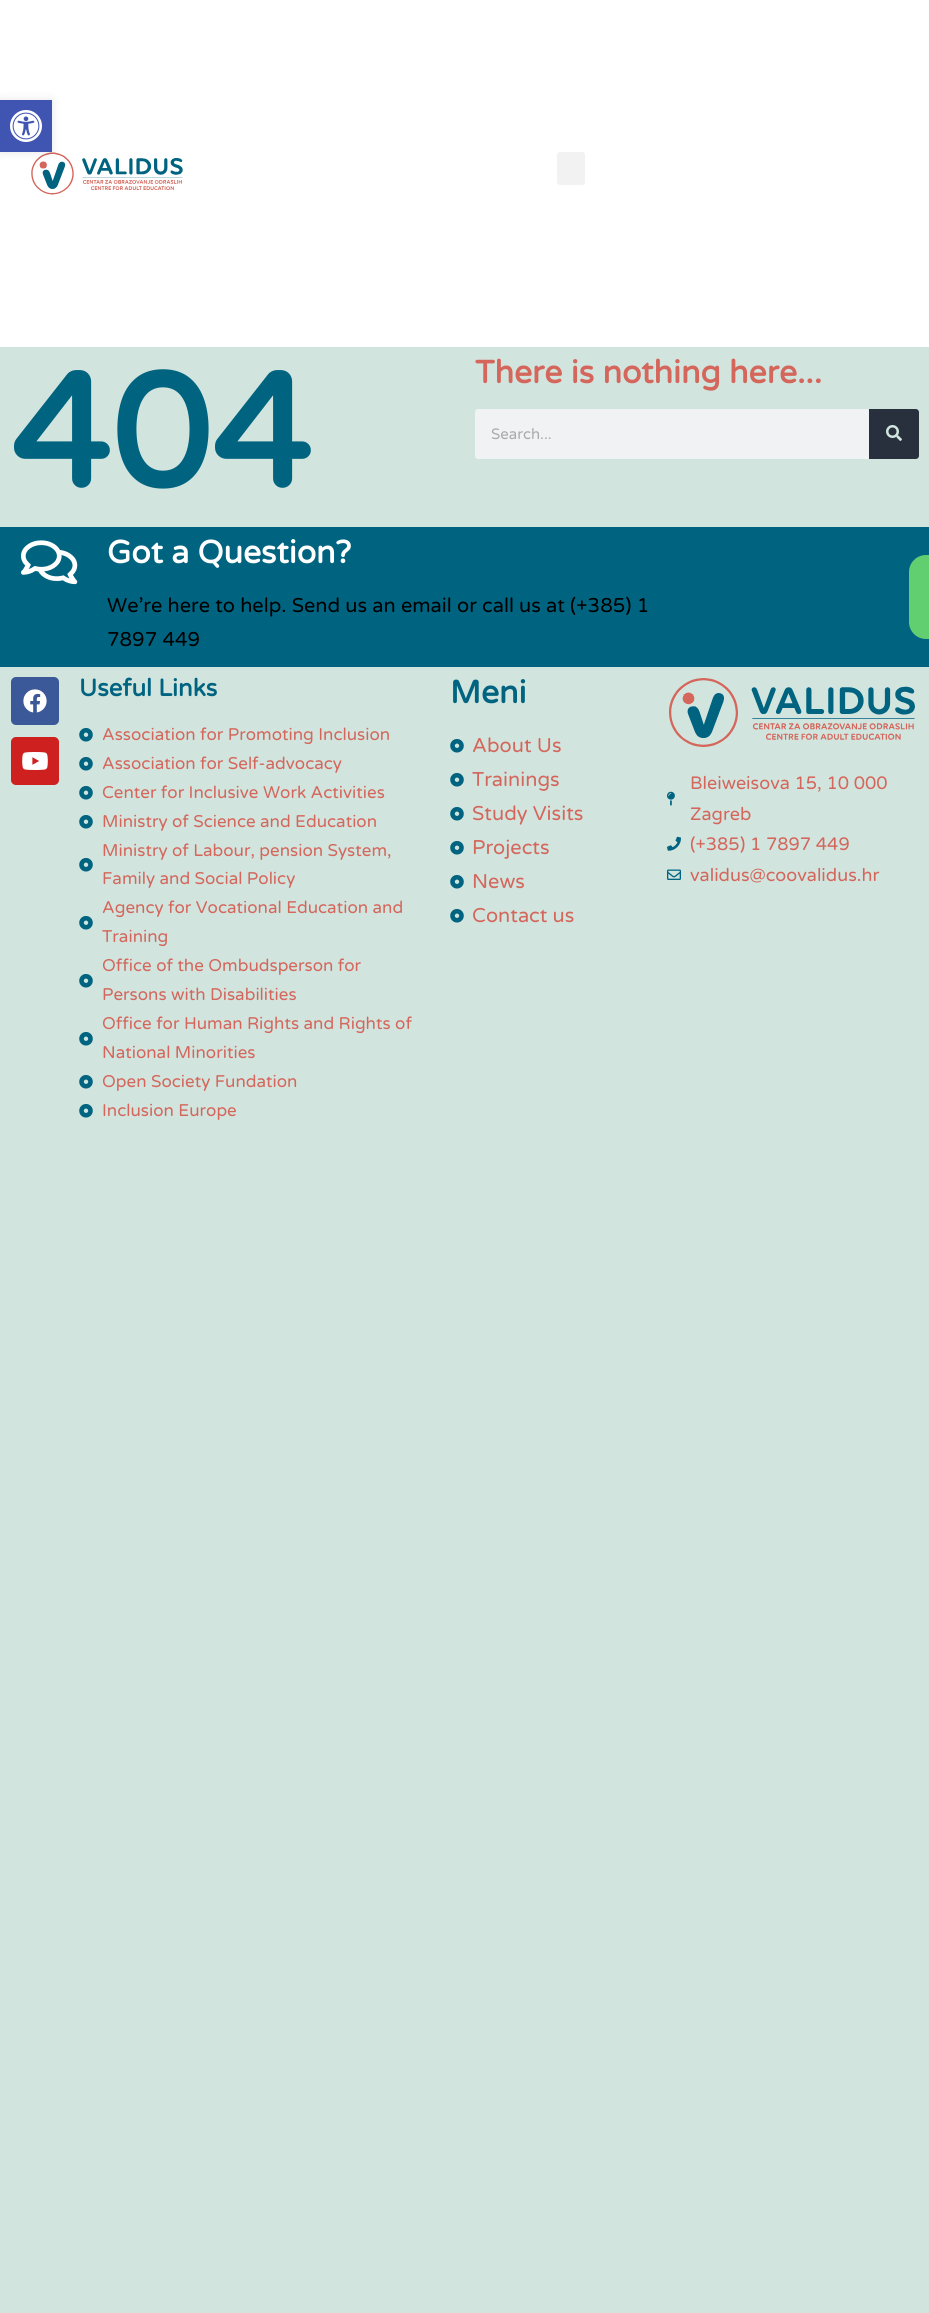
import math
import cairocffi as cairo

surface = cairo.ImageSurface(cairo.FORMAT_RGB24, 929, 2313)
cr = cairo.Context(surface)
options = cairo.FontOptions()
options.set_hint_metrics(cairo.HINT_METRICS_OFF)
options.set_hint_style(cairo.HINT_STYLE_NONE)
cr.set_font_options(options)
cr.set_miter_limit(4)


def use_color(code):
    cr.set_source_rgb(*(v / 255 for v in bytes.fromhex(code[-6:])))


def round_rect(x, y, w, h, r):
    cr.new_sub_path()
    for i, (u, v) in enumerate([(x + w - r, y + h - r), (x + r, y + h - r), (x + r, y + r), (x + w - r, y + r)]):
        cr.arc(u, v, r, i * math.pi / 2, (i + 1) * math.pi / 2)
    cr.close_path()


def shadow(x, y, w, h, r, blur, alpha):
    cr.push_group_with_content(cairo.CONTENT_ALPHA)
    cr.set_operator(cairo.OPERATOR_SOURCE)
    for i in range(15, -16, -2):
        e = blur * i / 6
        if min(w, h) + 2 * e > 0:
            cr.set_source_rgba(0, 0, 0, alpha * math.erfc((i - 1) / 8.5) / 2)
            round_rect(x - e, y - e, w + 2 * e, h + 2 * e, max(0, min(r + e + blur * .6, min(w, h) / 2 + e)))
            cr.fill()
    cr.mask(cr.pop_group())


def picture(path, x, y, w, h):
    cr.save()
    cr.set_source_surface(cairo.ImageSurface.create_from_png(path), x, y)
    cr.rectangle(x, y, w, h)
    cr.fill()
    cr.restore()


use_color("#d1e4dd")
cr.paint()
use_color("#ffffff")
cr.rectangle(0, 0, 929, 347)
cr.fill()
picture("img1.png", 31, 152, 152, 43)
use_color("#f2f2f2")
round_rect(557, 152, 28, 33, 3)
cr.fill()
use_color("#000000")
shadow(0, 100, 52, 52, 0, 5, 0.1)
use_color("#4054b2")
cr.rectangle(0, 100, 52, 52)
cr.fill()
picture("img2.png", 10, 110, 32, 32)
cr.select_font_face("Varela Round", cairo.FONT_SLANT_NORMAL, cairo.FONT_WEIGHT_BOLD)
cr.set_font_size(160)
use_color("#006481")
cr.move_to(10, 487)
cr.show_text("404")
cr.set_font_size(32)
use_color("#d4665c")
cr.move_to(475, 383)
cr.show_text("There is nothing here...")
use_color("#f1f2f3")
round_rect(475, 409, 444, 50, 3)
cr.fill()
cr.select_font_face("Varela Round")
cr.set_font_size(15)
use_color("#aaaaaa")
cr.move_to(491, 439)
cr.show_text("Search...")
use_color("#28303d")
cr.new_path()
cr.move_to(869, 409)
cr.line_to(916, 409)
cr.curve_to(917.5, 409, 919, 410.5, 919, 412)
cr.line_to(919, 456)
cr.curve_to(919, 457.5, 917.5, 459, 916, 459)
cr.line_to(869, 459)
cr.close_path()
cr.fill()
picture("img3.png", 886, 425, 16, 16)
use_color("#006481")
cr.rectangle(0, 527, 929, 140)
cr.fill()
picture("img4.png", 20, 540, 58, 45)
cr.select_font_face("Varela Round", cairo.FONT_SLANT_NORMAL, cairo.FONT_WEIGHT_BOLD)
cr.set_font_size(32)
use_color("#ffffff")
cr.move_to(107, 563)
cr.show_text("Got a Question?")
cr.select_font_face("Varela Round")
cr.set_font_size(20)
use_color("#000000")
cr.move_to(107, 612)
cr.show_text("We’re here to help. Send us an email or call us at (+385) 1")
cr.move_to(107, 646)
cr.show_text("7897 449")
use_color("#61ce70")
round_rect(909, 555, 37, 84, 17)
cr.fill()
use_color("#3b5998")
round_rect(11, 677, 48, 48, 5)
cr.fill()
picture("img5.png", 23, 689, 24, 24)
use_color("#cd201f")
round_rect(11, 737, 48, 48, 5)
cr.fill()
picture("img6.png", 22, 752, 26, 18)
cr.select_font_face("Varela Round", cairo.FONT_SLANT_NORMAL, cairo.FONT_WEIGHT_BOLD)
cr.set_font_size(24)
use_color("#006481")
cr.move_to(79, 696)
cr.show_text("Useful Links")
picture("img7.png", 79, 728, 14, 14)
cr.select_font_face("Varela Round")
cr.set_font_size(17)
use_color("#d4665c")
cr.move_to(102, 740)
cr.show_text("Association for Promoting Inclusion")
picture("img7.png", 79, 757, 14, 14)
cr.move_to(102, 769)
cr.show_text("Association for Self-advocacy")
picture("img7.png", 79, 786, 14, 14)
cr.move_to(102, 798)
cr.show_text("Center for Inclusive Work Activities")
picture("img7.png", 79, 815, 14, 14)
cr.move_to(102, 827)
cr.show_text("Ministry of Science and Education")
picture("img7.png", 79, 858, 14, 14)
cr.move_to(102, 856)
cr.show_text("Ministry of Labour, pension System,")
cr.move_to(102, 884)
cr.show_text("Family and Social Policy")
picture("img7.png", 79, 916, 14, 14)
cr.move_to(102, 913)
cr.show_text("Agency for Vocational Education and")
cr.move_to(102, 942)
cr.show_text("Training")
picture("img7.png", 79, 974, 14, 14)
cr.move_to(102, 971)
cr.show_text("Office of the Ombudsperson for")
cr.move_to(102, 1000)
cr.show_text("Persons with Disabilities")
picture("img7.png", 79, 1032, 14, 14)
cr.move_to(102, 1029)
cr.show_text("Office for Human Rights and Rights of")
cr.move_to(102, 1058)
cr.show_text("National Minorities")
picture("img7.png", 79, 1075, 14, 14)
cr.move_to(102, 1087)
cr.show_text("Open Society Fundation")
picture("img7.png", 79, 1104, 14, 14)
cr.move_to(102, 1116)
cr.show_text("Inclusion Europe")
cr.select_font_face("Varela Round", cairo.FONT_SLANT_NORMAL, cairo.FONT_WEIGHT_BOLD)
cr.set_font_size(32)
use_color("#006481")
cr.move_to(450, 703)
cr.show_text("Meni")
picture("img7.png", 450, 739, 14, 14)
cr.select_font_face("Varela Round")
cr.set_font_size(20)
use_color("#d4665c")
cr.move_to(472, 752)
cr.show_text("About Us")
picture("img7.png", 450, 773, 14, 14)
cr.move_to(472, 786)
cr.show_text("Trainings")
picture("img7.png", 450, 807, 14, 14)
cr.move_to(472, 820)
cr.show_text("Study Visits")
picture("img7.png", 450, 841, 14, 14)
cr.move_to(472, 854)
cr.show_text("Projects")
picture("img7.png", 450, 875, 14, 14)
cr.move_to(472, 888)
cr.show_text("News")
picture("img7.png", 450, 909, 14, 14)
cr.move_to(472, 922)
cr.show_text("Contact us")
picture("img8.png", 669, 678, 246, 69)
picture("img9.png", 667, 791, 8, 15)
cr.set_font_size(18)
cr.move_to(690, 789)
cr.show_text("Bleiweisova 15, 10 000")
cr.move_to(690, 820)
cr.show_text("Zagreb")
picture("img10.png", 667, 836, 14, 15)
cr.move_to(690, 850)
cr.show_text("(+385) 1 7897 449")
picture("img11.png", 667, 869, 14, 11)
cr.move_to(690, 881)
cr.show_text("validus@coovalidus.hr")
surface.write_to_png("result.png")
